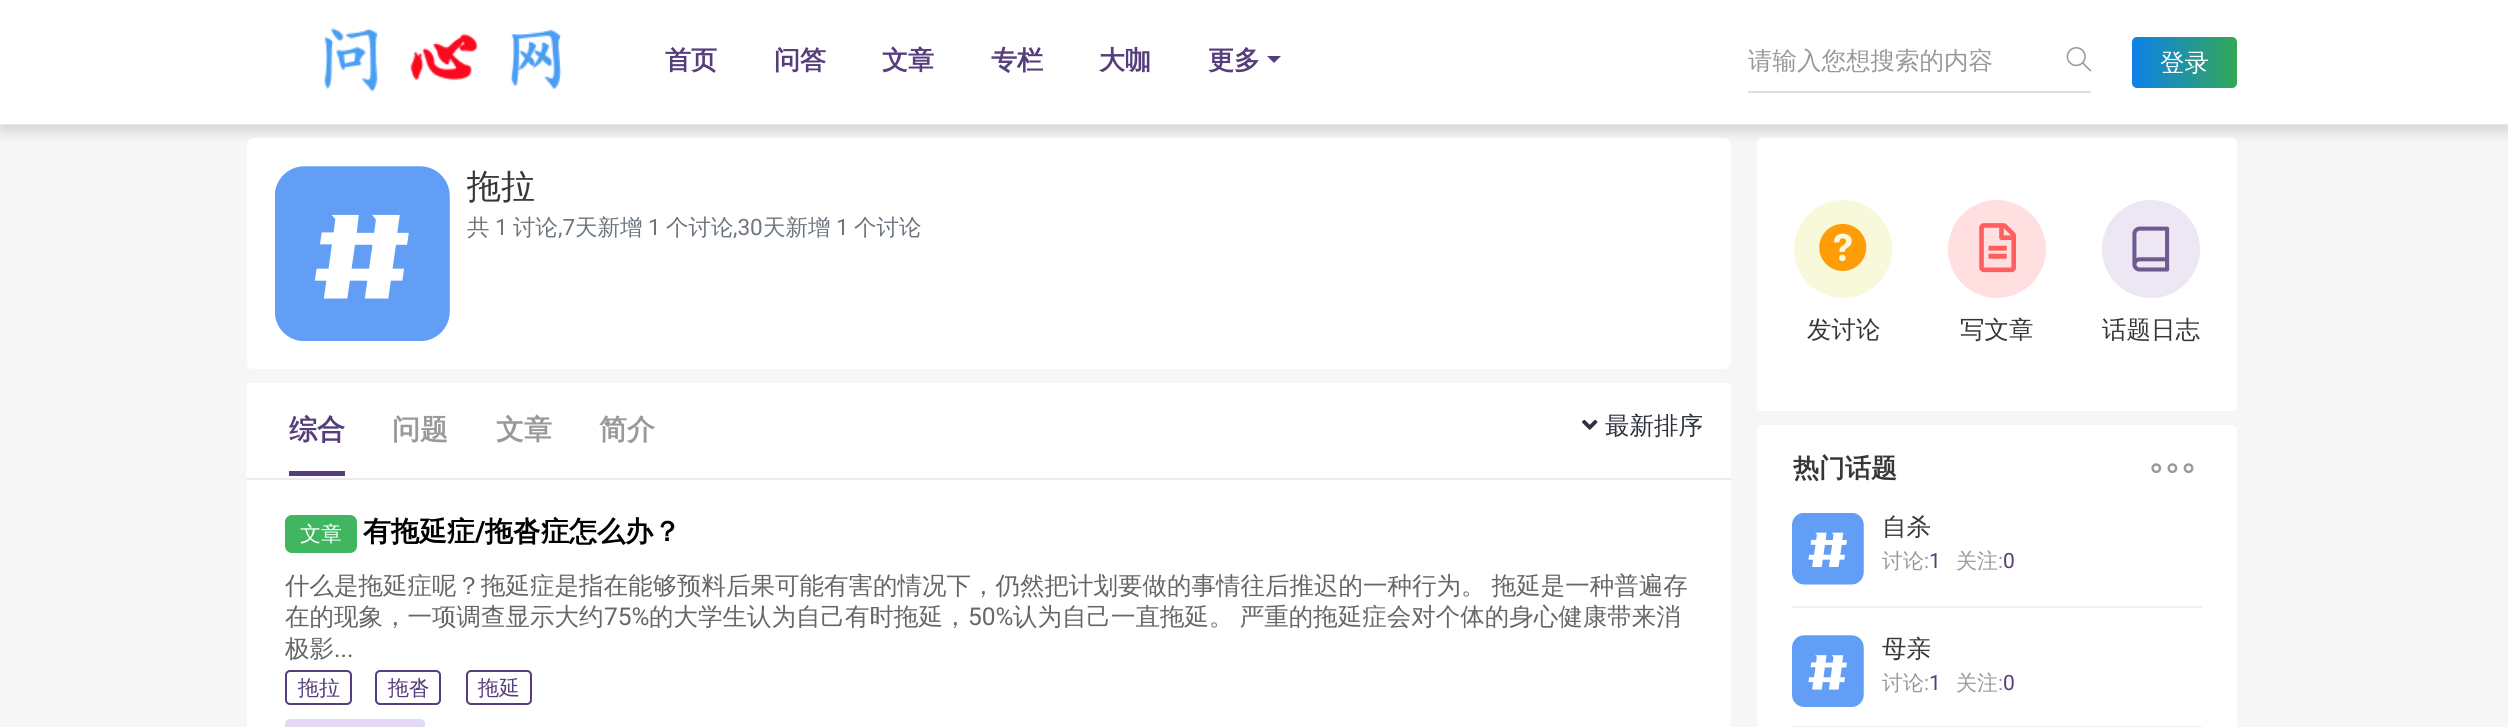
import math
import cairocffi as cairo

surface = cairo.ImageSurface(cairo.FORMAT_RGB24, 2508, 727)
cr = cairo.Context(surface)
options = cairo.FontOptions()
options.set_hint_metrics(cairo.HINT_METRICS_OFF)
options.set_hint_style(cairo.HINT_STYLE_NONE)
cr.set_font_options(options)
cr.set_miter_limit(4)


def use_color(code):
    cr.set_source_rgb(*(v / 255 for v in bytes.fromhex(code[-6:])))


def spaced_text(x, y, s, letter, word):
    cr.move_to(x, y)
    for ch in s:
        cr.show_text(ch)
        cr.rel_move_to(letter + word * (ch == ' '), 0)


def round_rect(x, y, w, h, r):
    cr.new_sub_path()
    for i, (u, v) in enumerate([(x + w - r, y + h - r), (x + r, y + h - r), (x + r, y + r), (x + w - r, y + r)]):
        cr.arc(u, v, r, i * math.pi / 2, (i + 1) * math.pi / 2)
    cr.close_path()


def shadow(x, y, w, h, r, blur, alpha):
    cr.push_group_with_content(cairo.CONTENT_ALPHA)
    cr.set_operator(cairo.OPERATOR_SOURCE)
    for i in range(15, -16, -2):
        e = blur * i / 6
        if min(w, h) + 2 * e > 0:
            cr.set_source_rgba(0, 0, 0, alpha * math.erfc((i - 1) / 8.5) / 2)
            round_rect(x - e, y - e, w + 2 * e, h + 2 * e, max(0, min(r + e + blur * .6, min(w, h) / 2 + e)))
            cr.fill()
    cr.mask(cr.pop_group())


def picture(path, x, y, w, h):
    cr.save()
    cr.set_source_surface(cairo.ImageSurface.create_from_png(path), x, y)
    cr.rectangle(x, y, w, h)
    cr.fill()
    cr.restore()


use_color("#f6f6f6")
cr.paint()
use_color("#000000")
shadow(0, 7, 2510, 124, 0, 7, 0.15)
use_color("#ffffff")
cr.rectangle(0, 0, 2508, 124)
cr.fill()
cr.set_source_rgba(1, 1, 1, 0.3)
cr.rectangle(0, 124, 2508, 1)
cr.fill()
picture("img1.png", 323, 28, 239, 64)
cr.select_font_face("WenQuanYi Zen Hei", cairo.FONT_SLANT_NORMAL, cairo.FONT_WEIGHT_BOLD)
cr.set_font_size(26)
use_color("#563d7c")
cr.move_to(665, 69)
cr.show_text("首页")
cr.move_to(774, 69)
cr.show_text("问答")
cr.move_to(882, 69)
cr.show_text("文章")
cr.move_to(991, 69)
cr.show_text("专栏")
cr.move_to(1099, 69)
cr.show_text("大咖")
cr.move_to(1208, 69)
cr.show_text("更多")
cr.new_path()
cr.move_to(1267, 56)
cr.line_to(1281, 56)
cr.line_to(1274, 63)
cr.close_path()
cr.fill()
use_color("#dedede")
cr.rectangle(1748, 91, 343, 2)
cr.fill()
cr.select_font_face("WenQuanYi Zen Hei Medium")
cr.set_font_size(24.5)
use_color("#999999")
cr.move_to(1748, 69)
cr.show_text("请输入您想搜索的内容")
picture("img2.png", 2066, 47, 26, 25)
gradient = cairo.LinearGradient(2132, 62, 2237, 62)
gradient.add_color_stop_rgba(0, 0.055, 0.506, 0.914, 1)
gradient.add_color_stop_rgba(1, 0.2, 0.655, 0.337, 1)
cr.set_source(gradient)
round_rect(2132, 37, 105, 51, 5)
cr.fill()
use_color("#ffffff")
cr.move_to(2160, 71)
cr.show_text("登录")
round_rect(247, 138, 1484, 231, 7)
cr.fill()
picture("img3.png", 275, 166, 175, 175)
cr.set_font_size(34)
use_color("#373737")
cr.move_to(467, 198)
cr.show_text("拖拉")
cr.set_font_size(22.5)
use_color("#6c757d")
cr.move_to(467, 235)
cr.show_text("共")
cr.select_font_face("Roboto")
cr.move_to(495, 235)
cr.show_text("1")
cr.select_font_face("WenQuanYi Zen Hei Medium")
cr.move_to(513, 235)
cr.show_text("讨论")
cr.select_font_face("Roboto")
cr.move_to(558, 235)
cr.show_text(",7")
cr.select_font_face("WenQuanYi Zen Hei Medium")
cr.move_to(575, 235)
cr.show_text("天新增")
cr.select_font_face("Roboto")
cr.move_to(648, 235)
cr.show_text("1")
cr.select_font_face("WenQuanYi Zen Hei Medium")
cr.move_to(666, 235)
cr.show_text("个讨论")
cr.select_font_face("Roboto")
cr.move_to(733, 235)
cr.show_text(",30")
cr.select_font_face("WenQuanYi Zen Hei Medium")
cr.move_to(763, 235)
cr.show_text("天新增")
cr.select_font_face("Roboto")
cr.move_to(836, 235)
cr.show_text("1")
cr.select_font_face("WenQuanYi Zen Hei Medium")
cr.move_to(854, 235)
cr.show_text("个讨论")
use_color("#ffffff")
cr.rectangle(247, 383, 1484, 344)
cr.fill()
use_color("#eceaee")
cr.rectangle(247, 478, 1484, 2)
cr.fill()
use_color("#563d7c")
cr.rectangle(289, 471, 56, 5)
cr.fill()
cr.select_font_face("WenQuanYi Zen Hei", cairo.FONT_SLANT_NORMAL, cairo.FONT_WEIGHT_BOLD)
cr.set_font_size(28)
cr.move_to(289, 439)
cr.show_text("综合")
use_color("#999999")
cr.move_to(392, 439)
cr.show_text("问题")
cr.move_to(496, 439)
cr.show_text("文章")
cr.move_to(599, 439)
cr.show_text("简介")
picture("img4.png", 1582, 419, 16, 11)
cr.select_font_face("WenQuanYi Zen Hei Medium")
cr.set_font_size(24.5)
use_color("#2e323c")
cr.move_to(1605, 434)
cr.show_text("最新排序")
use_color("#41b661")
round_rect(285, 515, 72, 38, 7)
cr.fill()
cr.set_font_size(21)
use_color("#ffffff")
cr.move_to(300, 541)
cr.show_text("文章")
cr.select_font_face("WenQuanYi Zen Hei", cairo.FONT_SLANT_NORMAL, cairo.FONT_WEIGHT_BOLD)
cr.set_font_size(28)
use_color("#000000")
cr.move_to(363, 541)
cr.show_text("有拖延症")
cr.select_font_face("Roboto", cairo.FONT_SLANT_NORMAL, cairo.FONT_WEIGHT_BOLD)
cr.move_to(475, 541)
cr.show_text("/")
cr.select_font_face("WenQuanYi Zen Hei", cairo.FONT_SLANT_NORMAL, cairo.FONT_WEIGHT_BOLD)
cr.move_to(485, 541)
cr.show_text("拖沓症怎么办？")
cr.select_font_face("WenQuanYi Zen Hei Medium")
cr.set_font_size(24.5)
use_color("#666666")
spaced_text(285, 594, "什么是拖延症呢？拖延症是指在能够预料后果可能有害的情况下，仍然把计划要做的事情往后推迟的一种行为。 拖延是一种普遍存", 0, -1)
cr.move_to(285, 625)
cr.show_text("在的现象，一项调查显示大约")
cr.select_font_face("Roboto")
cr.move_to(604, 625)
cr.show_text("75%")
cr.select_font_face("WenQuanYi Zen Hei Medium")
cr.move_to(649, 625)
cr.show_text("的大学生认为自己有时拖延，")
cr.select_font_face("Roboto")
cr.move_to(968, 625)
cr.show_text("50%")
cr.select_font_face("WenQuanYi Zen Hei Medium")
spaced_text(1013, 625, "认为自己一直拖延。 严重的拖延症会对个体的身心健康带来消", 0, -1)
cr.move_to(285, 657)
cr.show_text("极影")
cr.select_font_face("Roboto")
cr.move_to(334, 657)
cr.show_text("...")
round_rect(286, 671, 65, 33, 4)
use_color("#563d7c")
cr.stroke()
cr.select_font_face("WenQuanYi Zen Hei Medium")
cr.set_font_size(21)
cr.move_to(298, 695)
cr.show_text("拖拉")
round_rect(376, 671, 64, 33, 4)
cr.stroke()
cr.move_to(388, 695)
cr.show_text("拖沓")
round_rect(467, 671, 64, 33, 4)
cr.stroke()
cr.move_to(478, 695)
cr.show_text("拖延")
use_color("#e5d9f8")
round_rect(285, 719, 140, 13, 5)
cr.fill()
use_color("#ffffff")
round_rect(1757, 138, 480, 273, 5)
cr.fill()
use_color("#f7f9da")
cr.arc(1843, 249, 49, 0, 2 * math.pi)
cr.fill()
picture("img5.png", 1819, 223, 48, 48)
cr.set_font_size(24.5)
use_color("#373737")
cr.move_to(1807, 338)
cr.show_text("发讨论")
use_color("#ffdfdf")
cr.new_path()
cr.arc(1997, 249, 49, 0, 2 * math.pi)
cr.fill()
picture("img6.png", 1979, 223, 37, 50)
use_color("#373737")
cr.move_to(1960, 338)
cr.show_text("写文章")
use_color("#ece7f3")
cr.new_path()
cr.arc(2151, 249, 49, 0, 2 * math.pi)
cr.fill()
picture("img7.png", 2132, 226, 38, 46)
use_color("#373737")
cr.move_to(2102, 338)
cr.show_text("话题日志")
use_color("#ffffff")
round_rect(1757, 425, 480, 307, 5)
cr.fill()
cr.select_font_face("WenQuanYi Zen Hei", cairo.FONT_SLANT_NORMAL, cairo.FONT_WEIGHT_BOLD)
cr.set_font_size(26)
use_color("#373737")
cr.move_to(1793, 477)
cr.show_text("热门话题")
picture("img8.png", 2151, 463, 43, 11)
use_color("#efefef")
cr.rectangle(1792, 606, 410, 2)
cr.fill()
picture("img9.png", 1792, 513, 72, 72)
cr.select_font_face("WenQuanYi Zen Hei Medium")
cr.set_font_size(24.5)
use_color("#373737")
cr.move_to(1882, 535)
cr.show_text("自杀")
cr.set_font_size(21)
use_color("#999999")
cr.move_to(1882, 568)
cr.show_text("讨论")
cr.select_font_face("Roboto")
cr.move_to(1924, 568)
cr.show_text(":")
use_color("#563d7c")
cr.move_to(1929, 568)
cr.show_text("1")
cr.select_font_face("WenQuanYi Zen Hei Medium")
use_color("#999999")
cr.move_to(1956, 568)
cr.show_text("关注")
cr.select_font_face("Roboto")
cr.move_to(1998, 568)
cr.show_text(":")
use_color("#563d7c")
cr.move_to(2003, 568)
cr.show_text("0")
use_color("#efefef")
cr.rectangle(1792, 726, 410, 1)
cr.fill()
picture("img10.png", 1792, 635, 72, 72)
cr.select_font_face("WenQuanYi Zen Hei Medium")
cr.set_font_size(24.5)
use_color("#373737")
cr.move_to(1882, 657)
cr.show_text("母亲")
cr.set_font_size(21)
use_color("#999999")
cr.move_to(1882, 690)
cr.show_text("讨论")
cr.select_font_face("Roboto")
cr.move_to(1924, 690)
cr.show_text(":")
use_color("#563d7c")
cr.move_to(1929, 690)
cr.show_text("1")
cr.select_font_face("WenQuanYi Zen Hei Medium")
use_color("#999999")
cr.move_to(1956, 690)
cr.show_text("关注")
cr.select_font_face("Roboto")
cr.move_to(1998, 690)
cr.show_text(":")
use_color("#563d7c")
cr.move_to(2003, 690)
cr.show_text("0")
surface.write_to_png("result.png")
